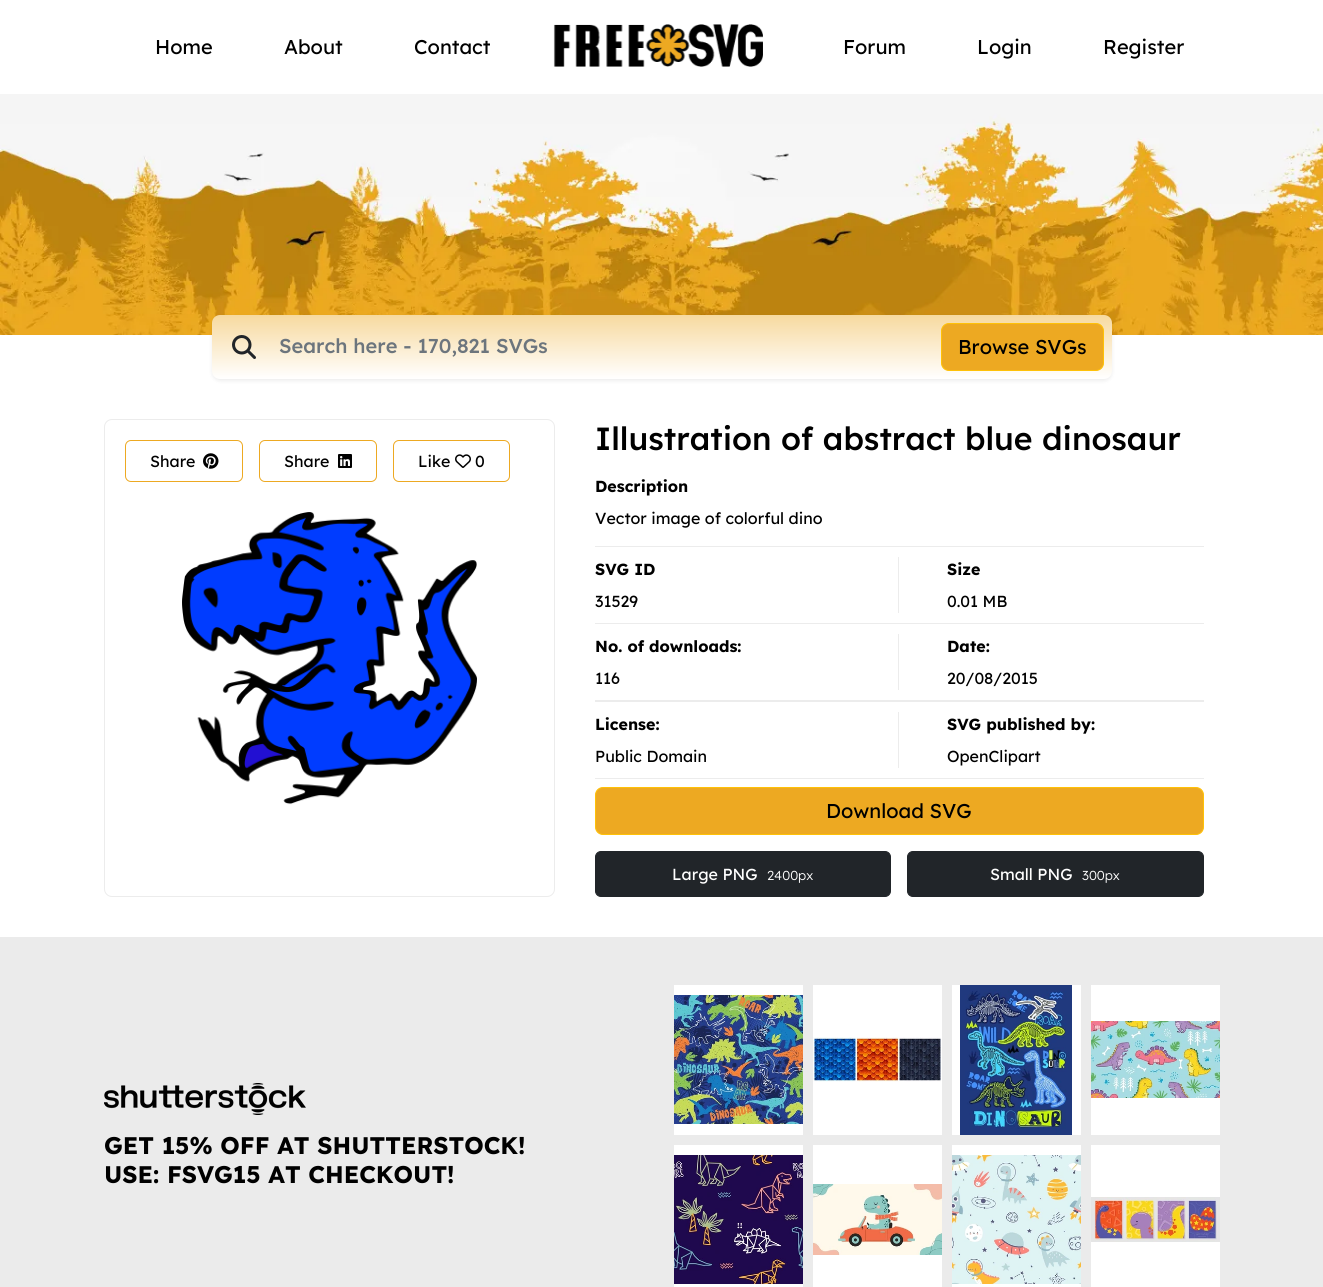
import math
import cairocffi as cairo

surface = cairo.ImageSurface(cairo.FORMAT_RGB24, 1323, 1287)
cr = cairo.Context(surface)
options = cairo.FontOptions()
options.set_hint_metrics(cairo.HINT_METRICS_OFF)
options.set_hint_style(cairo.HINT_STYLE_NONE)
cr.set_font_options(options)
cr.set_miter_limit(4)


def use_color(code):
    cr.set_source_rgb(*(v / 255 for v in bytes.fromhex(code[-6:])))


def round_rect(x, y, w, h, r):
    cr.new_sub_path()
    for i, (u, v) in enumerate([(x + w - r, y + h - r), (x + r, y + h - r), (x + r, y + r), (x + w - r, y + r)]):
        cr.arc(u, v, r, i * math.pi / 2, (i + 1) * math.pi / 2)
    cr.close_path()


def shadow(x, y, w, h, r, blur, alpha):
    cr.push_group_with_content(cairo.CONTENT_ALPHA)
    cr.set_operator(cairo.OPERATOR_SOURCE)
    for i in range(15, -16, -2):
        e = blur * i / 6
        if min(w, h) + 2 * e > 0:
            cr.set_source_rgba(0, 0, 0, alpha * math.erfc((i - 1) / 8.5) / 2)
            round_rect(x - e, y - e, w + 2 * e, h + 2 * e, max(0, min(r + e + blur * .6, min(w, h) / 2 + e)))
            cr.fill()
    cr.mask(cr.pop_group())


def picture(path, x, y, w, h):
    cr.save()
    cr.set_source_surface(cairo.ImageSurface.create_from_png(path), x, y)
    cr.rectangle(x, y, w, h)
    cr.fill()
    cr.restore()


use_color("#ffffff")
cr.paint()
cr.select_font_face("Lexend")
cr.set_font_size(20)
use_color("#000000")
cr.move_to(155, 54)
cr.show_text("Home")
cr.move_to(284, 54)
cr.show_text("About")
cr.move_to(414, 54)
cr.show_text("Contact")
picture("img1.png", 553, 24, 210, 43)
cr.move_to(843, 54)
cr.show_text("Forum")
cr.move_to(977, 54)
cr.show_text("Login")
cr.move_to(1103, 54)
cr.show_text("Register")
picture("img2.png", 0, 94, 1323, 241)
use_color("#000000")
shadow(212, 317, 900, 64, 8, 2, 0.07)
gradient = cairo.LinearGradient(662, 379, 662, 232)
gradient.add_color_stop_rgba(0, 1, 1, 1, 1)
gradient.add_color_stop_rgba(1, 0.929, 0.663, 0.133, 1)
cr.set_source(gradient)
round_rect(212, 315, 900, 64, 8)
cr.fill()
picture("img3.png", 232, 335, 24, 24)
cr.select_font_face("Lexend Medium")
use_color("#6c757d")
cr.move_to(279, 353)
cr.show_text("Search here - 170,821 SVGs")
use_color("#eda922")
round_rect(941.5, 323.5, 162, 47, 7.5)
cr.fill_preserve()
use_color("#ffc107")
cr.set_line_width(1)
cr.stroke()
cr.select_font_face("Lexend")
use_color("#000000")
cr.move_to(958, 354)
cr.show_text("Browse SVGs")
round_rect(104.5, 419.5, 450, 477, 7.5)
use_color("#ececec")
cr.stroke()
round_rect(125.5, 440.5, 117, 41, 5.5)
use_color("#eda922")
cr.stroke()
cr.set_font_size(16)
use_color("#000000")
cr.move_to(150, 467)
cr.show_text("Share")
picture("img4.png", 203, 453, 16, 16)
round_rect(259.5, 440.5, 117, 41, 5.5)
use_color("#eda922")
cr.stroke()
use_color("#000000")
cr.move_to(284, 467)
cr.show_text("Share")
picture("img5.png", 338, 454, 14, 14)
round_rect(393.5, 440.5, 116, 41, 5.5)
use_color("#eda922")
cr.stroke()
use_color("#000000")
cr.move_to(418, 467)
cr.show_text("Like")
picture("img6.png", 455, 454, 16, 14)
cr.move_to(475, 467)
cr.show_text("0")
picture("img7.png", 182, 512, 295, 293)
cr.select_font_face("Lexend Medium")
cr.set_font_size(32)
cr.move_to(595, 450)
cr.show_text("Illustration of abstract blue dinosaur")
cr.select_font_face("Lexend", cairo.FONT_SLANT_NORMAL, cairo.FONT_WEIGHT_BOLD)
cr.set_font_size(16)
cr.move_to(595, 492)
cr.show_text("Description")
cr.select_font_face("Lexend")
cr.move_to(595, 524)
cr.show_text("Vector image of colorful dino")
use_color("#ececec")
cr.rectangle(595, 546, 609, 1)
cr.fill()
cr.rectangle(898, 557, 1, 56)
cr.fill()
cr.select_font_face("Lexend", cairo.FONT_SLANT_NORMAL, cairo.FONT_WEIGHT_BOLD)
use_color("#000000")
cr.move_to(595, 575)
cr.show_text("SVG ID")
cr.select_font_face("Lexend")
cr.move_to(595, 607)
cr.show_text("31529")
cr.select_font_face("Lexend", cairo.FONT_SLANT_NORMAL, cairo.FONT_WEIGHT_BOLD)
cr.move_to(947, 575)
cr.show_text("Size")
cr.select_font_face("Lexend")
cr.move_to(947, 607)
cr.show_text("0.01 MB")
use_color("#ececec")
cr.rectangle(595, 623, 609, 1)
cr.fill()
cr.rectangle(595, 700, 609, 2)
cr.fill()
cr.rectangle(898, 634, 1, 56)
cr.fill()
cr.select_font_face("Lexend", cairo.FONT_SLANT_NORMAL, cairo.FONT_WEIGHT_BOLD)
use_color("#000000")
cr.move_to(595, 652)
cr.show_text("No. of downloads:")
cr.select_font_face("Lexend")
cr.move_to(595, 684)
cr.show_text("116")
cr.select_font_face("Lexend", cairo.FONT_SLANT_NORMAL, cairo.FONT_WEIGHT_BOLD)
cr.move_to(947, 652)
cr.show_text("Date:")
cr.select_font_face("Lexend")
cr.move_to(947, 684)
cr.show_text("20/08/2015")
use_color("#ececec")
cr.rectangle(595, 778, 609, 1)
cr.fill()
cr.rectangle(898, 712, 1, 56)
cr.fill()
cr.select_font_face("Lexend", cairo.FONT_SLANT_NORMAL, cairo.FONT_WEIGHT_BOLD)
use_color("#000000")
cr.move_to(595, 730)
cr.show_text("License:")
cr.select_font_face("Lexend")
cr.move_to(595, 762)
cr.show_text("Public Domain")
cr.select_font_face("Lexend", cairo.FONT_SLANT_NORMAL, cairo.FONT_WEIGHT_BOLD)
cr.move_to(947, 730)
cr.show_text("SVG published by:")
cr.select_font_face("Lexend")
cr.move_to(947, 762)
cr.show_text("OpenClipart")
use_color("#eda922")
round_rect(595.5, 787.5, 608, 47, 7.5)
cr.fill_preserve()
use_color("#ffc107")
cr.stroke()
cr.set_font_size(20)
use_color("#000000")
cr.move_to(826, 818)
cr.show_text("Download SVG")
use_color("#212529")
round_rect(595.5, 851.5, 295, 45, 5.5)
cr.fill_preserve()
cr.stroke()
cr.set_font_size(16)
use_color("#ffffff")
cr.move_to(672, 880)
cr.show_text("Large PNG")
cr.select_font_face("Lexend Light")
cr.set_font_size(13)
cr.move_to(767, 880)
cr.show_text("2400px")
use_color("#212529")
round_rect(907.5, 851.5, 296, 45, 5.5)
cr.fill_preserve()
cr.stroke()
cr.select_font_face("Lexend")
cr.set_font_size(16)
use_color("#ffffff")
cr.move_to(990, 880)
cr.show_text("Small PNG")
cr.select_font_face("Lexend Light")
cr.set_font_size(13)
cr.move_to(1082, 880)
cr.show_text("300px")
use_color("#ebebeb")
cr.rectangle(0, 937, 1323, 350)
cr.fill()
picture("img8.png", 104, 1083, 202, 32)
cr.select_font_face("Lexend", cairo.FONT_SLANT_NORMAL, cairo.FONT_WEIGHT_BOLD)
cr.set_font_size(24)
use_color("#000000")
cr.move_to(104, 1154)
cr.show_text("GET 15% OFF AT SHUTTERSTOCK!")
cr.move_to(104, 1183)
cr.show_text("USE: FSVG15 AT CHECKOUT!")
use_color("#ffffff")
cr.rectangle(674, 985, 129, 150)
cr.fill()
picture("img9.png", 674, 995, 129, 129)
cr.rectangle(813, 985, 129, 150)
cr.fill()
picture("img10.png", 813, 1037, 128, 45)
cr.rectangle(952, 985, 129, 150)
cr.fill()
picture("img11.png", 960, 985, 112, 150)
cr.rectangle(1091, 985, 129, 150)
cr.fill()
picture("img12.png", 1091, 1021, 129, 77)
cr.rectangle(674, 1145, 129, 142)
cr.fill()
picture("img13.png", 674, 1155, 129, 129)
cr.rectangle(813, 1145, 129, 142)
cr.fill()
picture("img14.png", 813, 1184, 129, 71)
cr.rectangle(952, 1145, 129, 142)
cr.fill()
picture("img15.png", 952, 1155, 129, 129)
cr.rectangle(1091, 1145, 129, 142)
cr.fill()
picture("img16.png", 1091, 1197, 129, 45)
surface.write_to_png("result.png")
